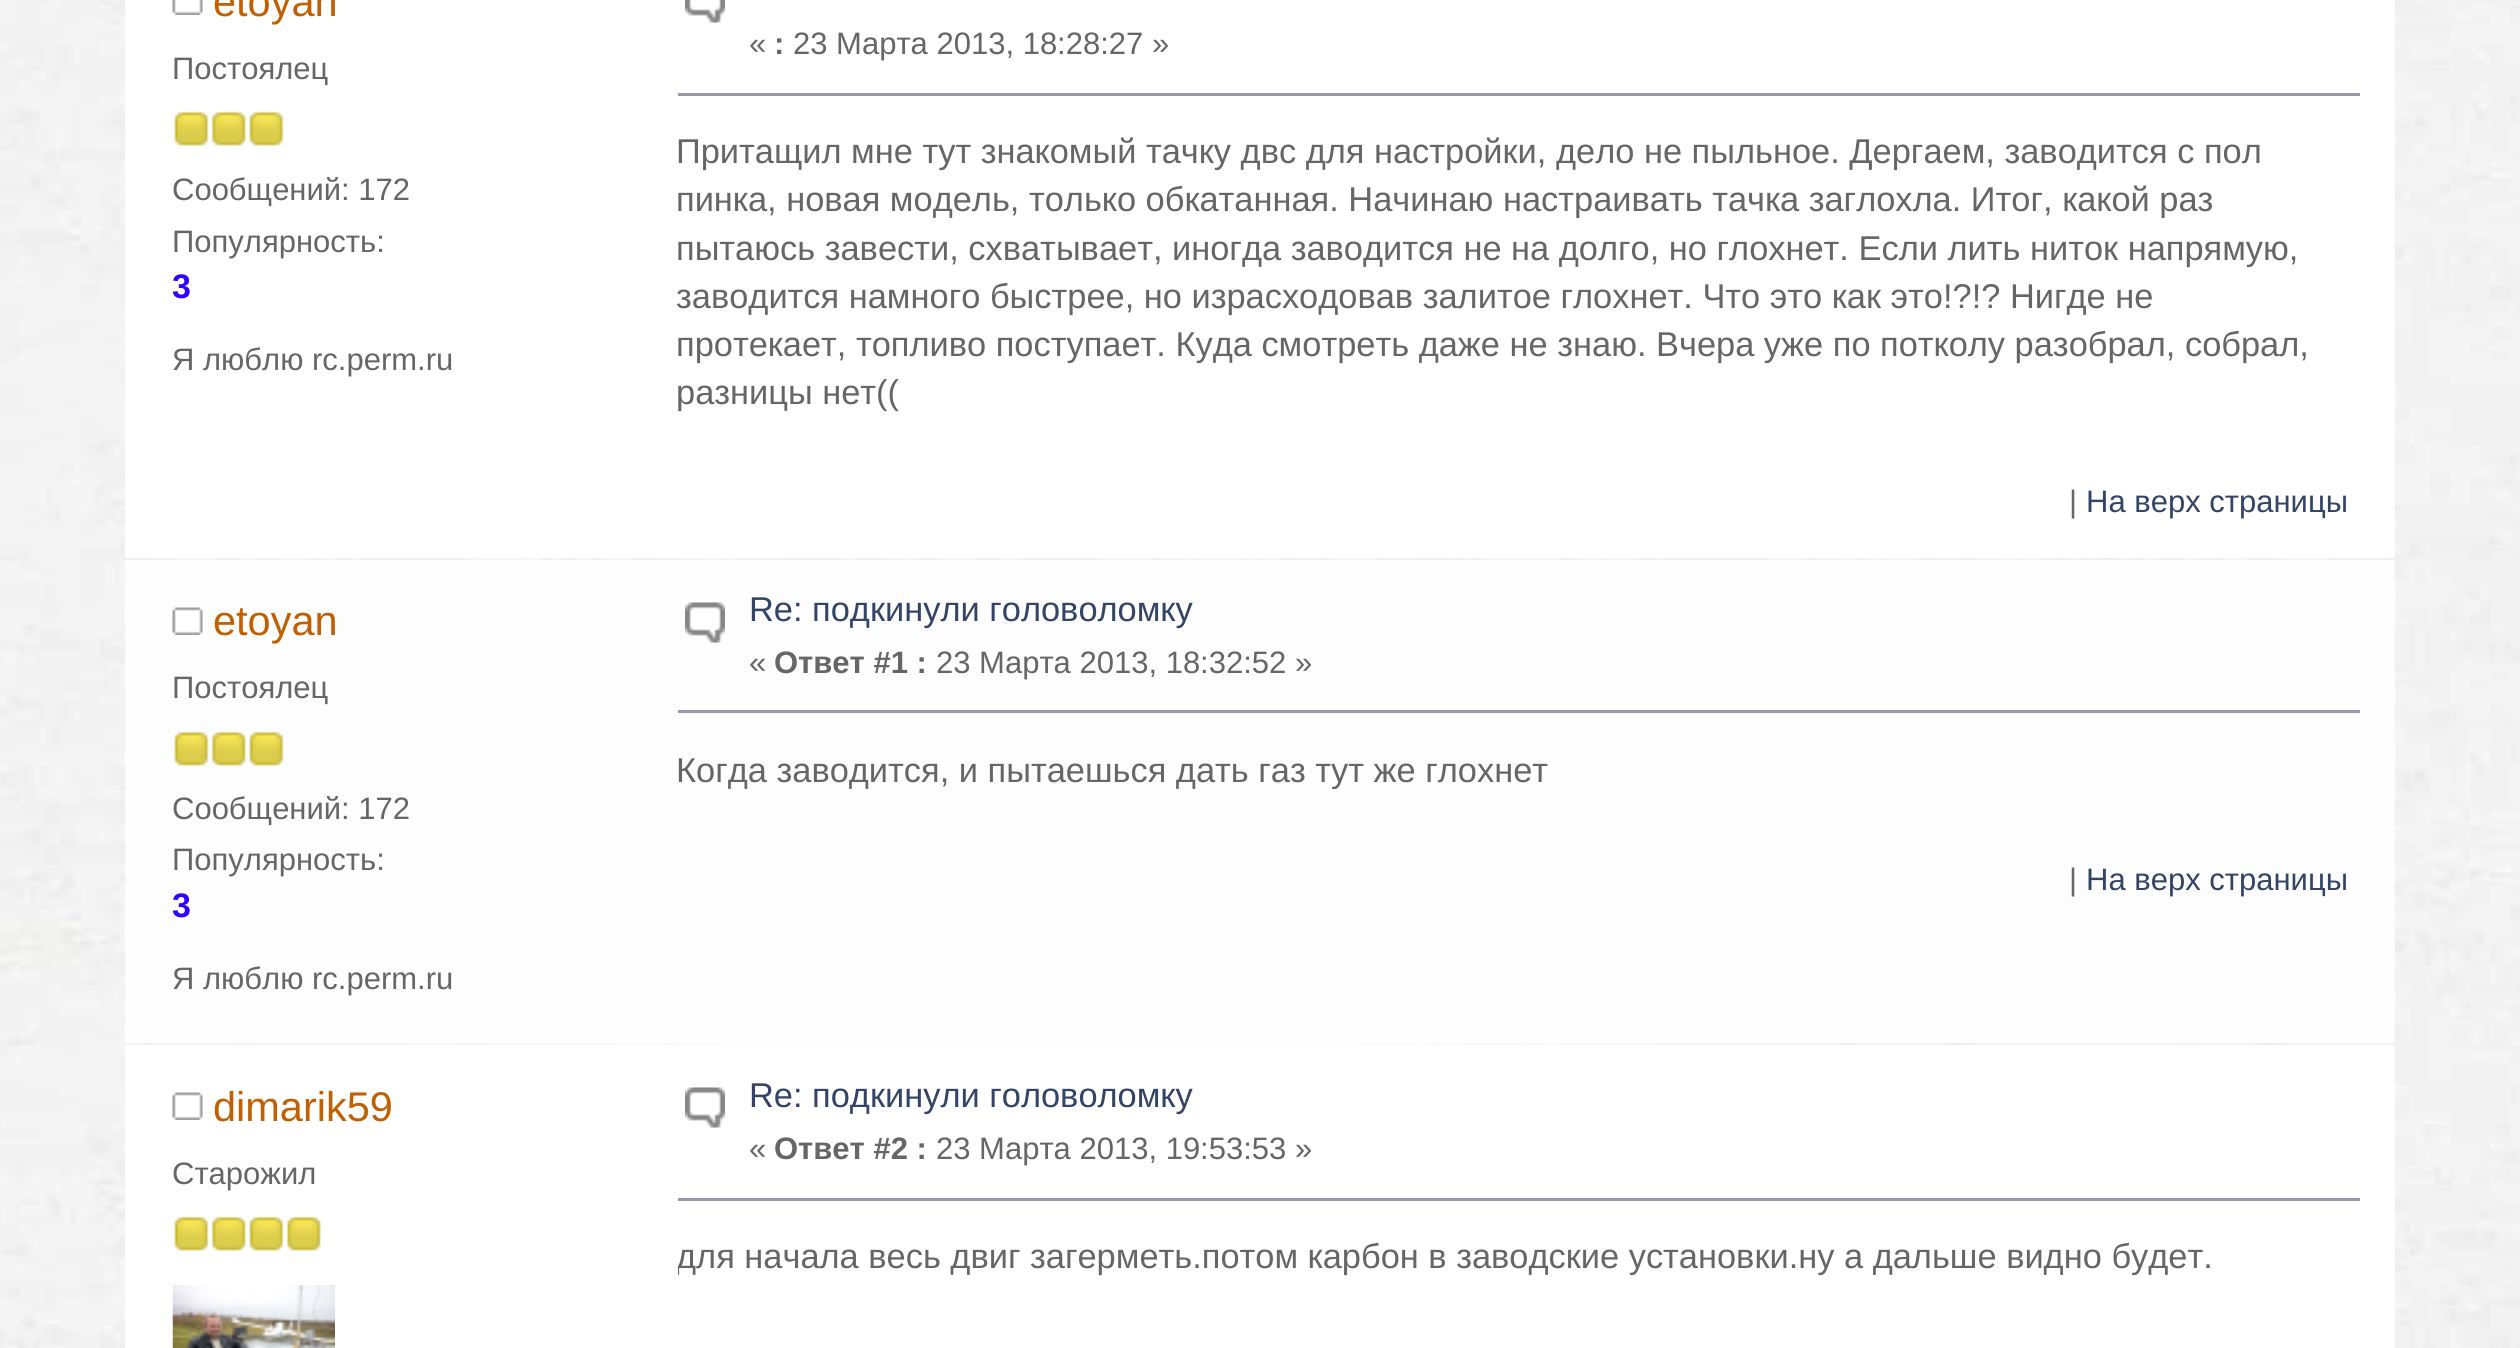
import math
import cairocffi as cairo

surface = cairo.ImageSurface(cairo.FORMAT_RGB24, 2520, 1348)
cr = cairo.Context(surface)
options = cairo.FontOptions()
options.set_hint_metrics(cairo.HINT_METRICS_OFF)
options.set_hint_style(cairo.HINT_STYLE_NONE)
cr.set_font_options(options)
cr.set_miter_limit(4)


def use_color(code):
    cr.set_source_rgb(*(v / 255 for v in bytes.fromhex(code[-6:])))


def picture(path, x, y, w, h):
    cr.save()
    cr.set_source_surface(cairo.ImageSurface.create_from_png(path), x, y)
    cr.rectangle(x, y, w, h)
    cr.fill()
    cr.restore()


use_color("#ffffff")
cr.paint()
picture("img1.png", 0, 0, 2520, 1348)
use_color("#ffffff")
cr.rectangle(125, 0, 2270, 558)
cr.fill()
picture("img2.png", 172, 0, 31, 15)
cr.select_font_face("Liberation Sans")
cr.set_font_size(41.5)
use_color("#c06002")
cr.move_to(213, 16)
cr.show_text("etoyan")
cr.set_font_size(31)
use_color("#666666")
cr.move_to(172, 79)
cr.show_text("Постоялец")
picture("img3.png", 174, 111, 35, 35)
picture("img4.png", 211, 111, 35, 35)
picture("img3.png", 249, 111, 35, 35)
cr.move_to(172, 200)
cr.show_text("Сообщений: 172")
cr.move_to(172, 252)
cr.show_text("Популярность:")
cr.select_font_face("Liberation Sans", cairo.FONT_SLANT_NORMAL, cairo.FONT_WEIGHT_BOLD)
cr.set_font_size(34)
use_color("#3300ff")
cr.move_to(172, 298)
cr.show_text("3")
cr.select_font_face("Liberation Sans")
cr.set_font_size(31)
use_color("#666666")
cr.move_to(172, 370)
cr.show_text("Я люблю rc.perm.ru")
picture("img5.png", 685, 0, 40, 23)
cr.move_to(749, 54)
cr.show_text("«")
cr.select_font_face("Liberation Sans", cairo.FONT_SLANT_NORMAL, cairo.FONT_WEIGHT_BOLD)
cr.move_to(774, 54)
cr.show_text(":")
cr.select_font_face("Liberation Sans")
cr.move_to(793, 54)
cr.show_text("23 Марта 2013, 18:28:27 »")
use_color("#9999aa")
cr.rectangle(678, 93, 1682, 3)
cr.fill()
cr.set_font_size(34.4)
use_color("#666666")
cr.move_to(676, 163)
cr.show_text("Притащил мне тут знакомый тачку двс для настройки, дело не пыльное. Дергаем, заводится с пол")
cr.move_to(676, 211)
cr.show_text("пинка, новая модель, только обкатанная. Начинаю настраивать тачка заглохла. Итог, какой раз")
cr.move_to(676, 260)
cr.show_text("пытаюсь завести, схватывает, иногда заводится не на долго, но глохнет. Если лить ниток напрямую,")
cr.move_to(676, 308)
cr.show_text("заводится намного быстрее, но израсходовав залитое глохнет. Что это как это!?!? Нигде не")
cr.move_to(676, 356)
cr.show_text("протекает, топливо поступает. Куда смотреть даже не знаю. Вчера уже по потколу разобрал, собрал,")
cr.move_to(676, 404)
cr.show_text("разницы нет((")
cr.set_font_size(31)
cr.move_to(2069, 512)
cr.show_text("|")
use_color("#334466")
cr.move_to(2086, 512)
cr.show_text("На верх страницы")
use_color("#fdfdfd")
cr.rectangle(125, 560, 2270, 483)
cr.fill()
picture("img6.png", 172, 607, 31, 28)
cr.set_font_size(41.5)
use_color("#c06002")
cr.move_to(213, 635)
cr.show_text("etoyan")
cr.set_font_size(31)
use_color("#666666")
cr.move_to(172, 698)
cr.show_text("Постоялец")
picture("img7.png", 174, 731, 35, 35)
picture("img8.png", 211, 731, 35, 35)
picture("img7.png", 249, 731, 35, 35)
cr.move_to(172, 819)
cr.show_text("Сообщений: 172")
cr.move_to(172, 870)
cr.show_text("Популярность:")
cr.select_font_face("Liberation Sans", cairo.FONT_SLANT_NORMAL, cairo.FONT_WEIGHT_BOLD)
cr.set_font_size(34)
use_color("#3300ff")
cr.move_to(172, 917)
cr.show_text("3")
cr.select_font_face("Liberation Sans")
cr.set_font_size(31)
use_color("#666666")
cr.move_to(172, 989)
cr.show_text("Я люблю rc.perm.ru")
picture("img9.png", 685, 602, 40, 41)
cr.set_font_size(34.4)
use_color("#334466")
cr.move_to(749, 621)
cr.show_text("Re: подкинули головоломку")
cr.set_font_size(31)
use_color("#666666")
cr.move_to(749, 673)
cr.show_text("«")
cr.select_font_face("Liberation Sans", cairo.FONT_SLANT_NORMAL, cairo.FONT_WEIGHT_BOLD)
cr.move_to(774, 673)
cr.show_text("Ответ #1 :")
cr.select_font_face("Liberation Sans")
cr.move_to(936, 673)
cr.show_text("23 Марта 2013, 18:32:52 »")
use_color("#9999aa")
cr.rectangle(678, 710, 1682, 3)
cr.fill()
cr.set_font_size(34.4)
use_color("#666666")
cr.move_to(676, 782)
cr.show_text("Когда заводится, и пытаешься дать газ тут же глохнет")
cr.set_font_size(31)
cr.move_to(2069, 890)
cr.show_text("|")
use_color("#334466")
cr.move_to(2086, 890)
cr.show_text("На верх страницы")
use_color("#ffffff")
cr.rectangle(125, 1045, 2270, 303)
cr.fill()
picture("img10.png", 172, 1092, 31, 28)
cr.set_font_size(41.5)
use_color("#c06002")
cr.move_to(213, 1121)
cr.show_text("dimarik59")
cr.set_font_size(31)
use_color("#666666")
cr.move_to(172, 1184)
cr.show_text("Старожил")
picture("img3.png", 174, 1216, 35, 35)
picture("img4.png", 211, 1216, 35, 35)
picture("img3.png", 249, 1216, 35, 35)
picture("img11.png", 286, 1216, 35, 35)
picture("img12.png", 172, 1285, 163, 63)
picture("img13.png", 685, 1087, 40, 41)
cr.set_font_size(34.4)
use_color("#334466")
cr.move_to(749, 1107)
cr.show_text("Re: подкинули головоломку")
cr.set_font_size(31)
use_color("#666666")
cr.move_to(749, 1159)
cr.show_text("«")
cr.select_font_face("Liberation Sans", cairo.FONT_SLANT_NORMAL, cairo.FONT_WEIGHT_BOLD)
cr.move_to(774, 1159)
cr.show_text("Ответ #2 :")
cr.select_font_face("Liberation Sans")
cr.move_to(936, 1159)
cr.show_text("23 Марта 2013, 19:53:53 »")
use_color("#9999aa")
cr.rectangle(678, 1198, 1682, 3)
cr.fill()
cr.save()
cr.rectangle(678, 1193, 1717, 97)
cr.clip()
cr.set_font_size(34.4)
use_color("#666666")
cr.move_to(676, 1268)
cr.show_text("для начала весь двиг загерметь.потом карбон в заводские установки.ну а дальше видно будет.")
cr.restore()
surface.write_to_png("result.png")
